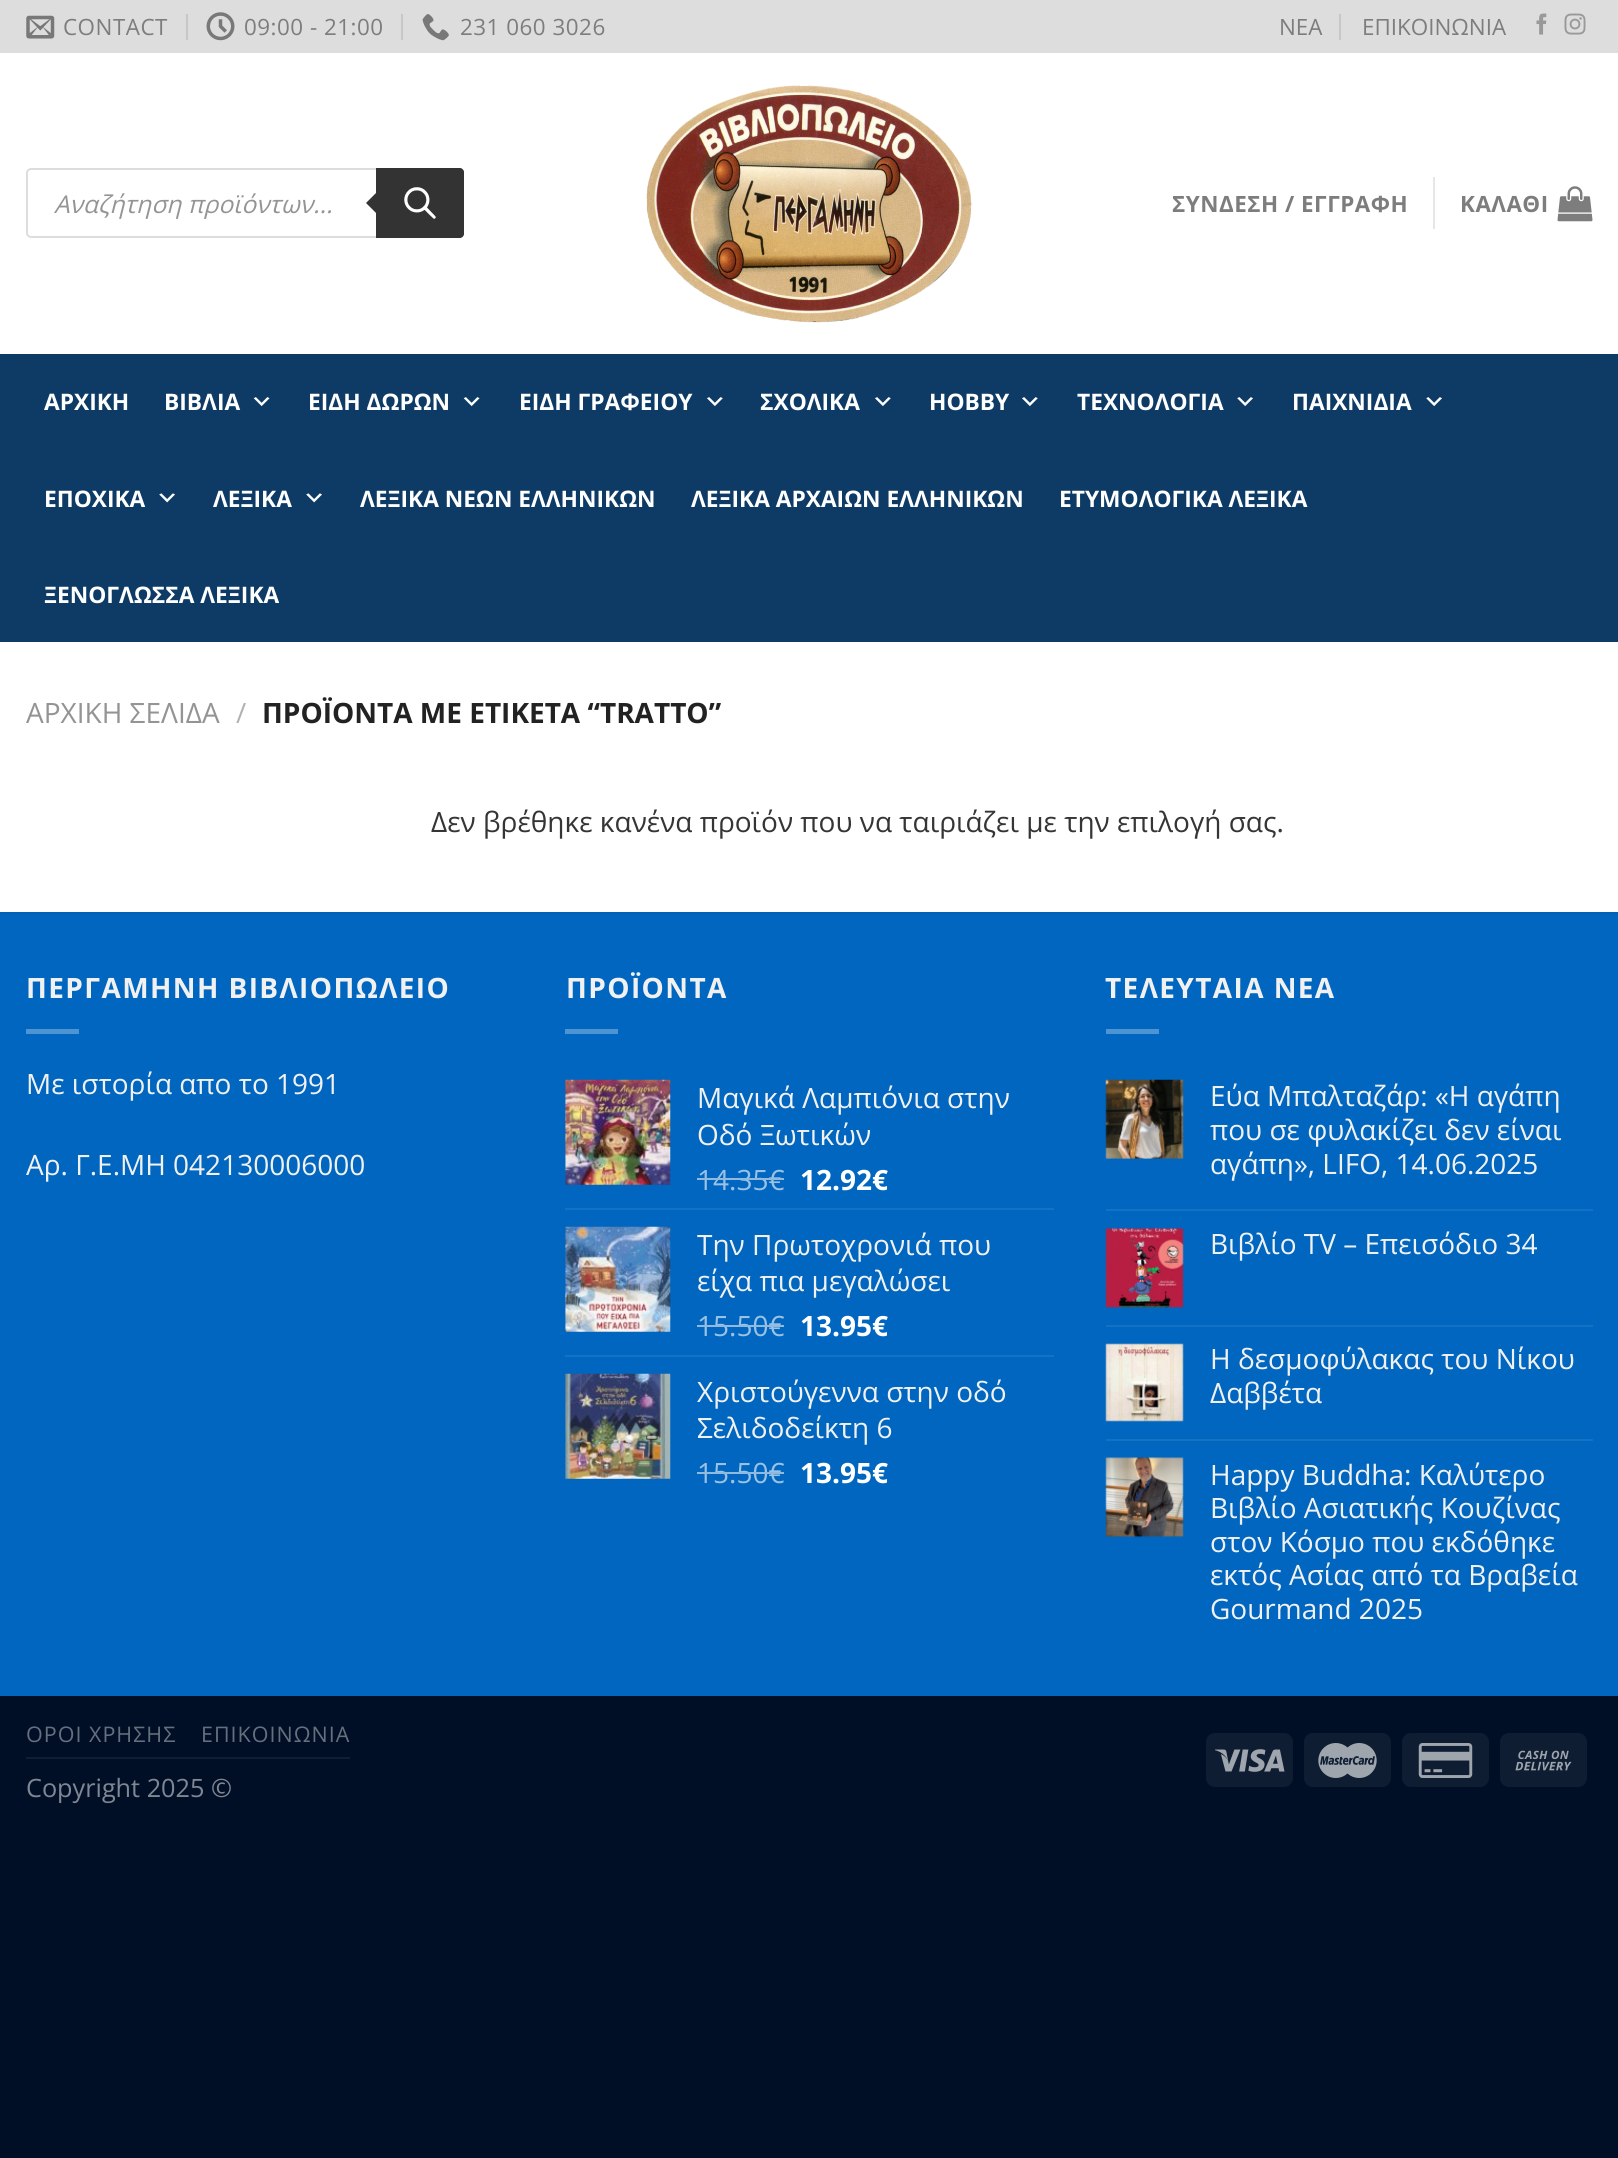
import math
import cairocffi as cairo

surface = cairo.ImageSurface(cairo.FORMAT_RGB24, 1618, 2158)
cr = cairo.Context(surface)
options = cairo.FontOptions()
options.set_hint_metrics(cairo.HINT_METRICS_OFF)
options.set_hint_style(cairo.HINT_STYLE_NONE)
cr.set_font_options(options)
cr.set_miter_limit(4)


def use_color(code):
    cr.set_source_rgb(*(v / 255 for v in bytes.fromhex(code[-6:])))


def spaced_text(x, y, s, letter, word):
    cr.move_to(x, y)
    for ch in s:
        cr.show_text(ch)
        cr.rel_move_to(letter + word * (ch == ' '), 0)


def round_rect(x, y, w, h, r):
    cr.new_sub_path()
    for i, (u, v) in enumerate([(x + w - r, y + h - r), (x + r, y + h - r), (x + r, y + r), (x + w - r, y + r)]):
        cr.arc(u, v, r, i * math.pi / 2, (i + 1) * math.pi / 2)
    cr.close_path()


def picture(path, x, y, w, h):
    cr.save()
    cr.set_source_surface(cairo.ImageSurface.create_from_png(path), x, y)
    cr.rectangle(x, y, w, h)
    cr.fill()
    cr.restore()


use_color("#000e26")
cr.paint()
use_color("#ffffff")
cr.rectangle(0, 53, 1618, 859)
cr.fill()
use_color("#dddddd")
cr.rectangle(0, 0, 1618, 53)
cr.fill()
picture("img1.png", 26, 15, 29, 24)
cr.select_font_face("Open Sans")
cr.set_font_size(22.4)
use_color("#7d7d7d")
spaced_text(63, 35, "CONTACT", 0.5, 0)
use_color("#c7c7c7")
cr.rectangle(186, 14, 2, 26)
cr.fill()
picture("img2.png", 206, 12, 29, 29)
use_color("#7d7d7d")
spaced_text(244, 35, "09:00 - 21:00", 0.5, 0)
use_color("#c7c7c7")
cr.rectangle(401, 14, 2, 26)
cr.fill()
picture("img3.png", 422, 14, 27, 27)
use_color("#7d7d7d")
spaced_text(460, 35, "231 060 3026", 0.5, 0)
cr.move_to(1279, 35)
cr.show_text("ΝΕΑ")
use_color("#c7c7c7")
cr.rectangle(1339, 14, 2, 26)
cr.fill()
use_color("#7d7d7d")
cr.move_to(1362, 35)
cr.show_text("ΕΠΙΚΟΙΝΩΝΙΑ")
picture("img4.png", 1536, 13, 11, 22)
picture("img5.png", 1564, 13, 22, 22)
round_rect(27, 169, 436, 68, 4)
use_color("#dddddd")
cr.stroke()
cr.select_font_face("Open Sans", cairo.FONT_SLANT_ITALIC)
cr.set_font_size(24.5)
use_color("#949494")
cr.move_to(54, 213)
cr.show_text("Αναζήτηση προϊόντων...")
use_color("#333333")
cr.new_path()
cr.move_to(376, 168)
cr.line_to(460, 168)
cr.curve_to(462, 168, 464, 170, 464, 172)
cr.line_to(464, 234)
cr.curve_to(464, 236, 462, 238, 460, 238)
cr.line_to(376, 238)
cr.close_path()
cr.fill()
cr.new_path()
cr.move_to(380, 189)
cr.line_to(380, 217)
cr.line_to(366, 203)
cr.close_path()
cr.fill()
picture("img6.png", 404, 187, 32, 32)
picture("img7.png", 646, 85, 327, 238)
cr.select_font_face("Open Sans", cairo.FONT_SLANT_NORMAL, cairo.FONT_WEIGHT_BOLD)
cr.set_font_size(22.4)
use_color("#7d7d7d")
spaced_text(1172, 212, "ΣΥΝΔΕΣΗ / ΕΓΓΡΑΦΗ", 0.5, 0)
use_color("#e6e6e6")
cr.rectangle(1433, 177, 2, 52)
cr.fill()
use_color("#7d7d7d")
spaced_text(1460, 212, "ΚΑΛΑΘΙ", 0.5, 0)
picture("img8.png", 1557, 186, 36, 36)
use_color("#0d3b66")
cr.rectangle(0, 354, 1618, 288)
cr.fill()
use_color("#113a61")
cr.rectangle(26, 354, 1567, 2)
cr.fill()
cr.set_font_size(22.75)
use_color("#ffffff")
cr.move_to(44, 410)
cr.show_text("ΑΡΧΙΚΗ")
cr.move_to(164, 410)
cr.show_text("ΒΙΒΛΙΑ")
picture("img9.png", 253, 397, 17, 10)
cr.move_to(308, 410)
cr.show_text("ΕΙΔΗ ΔΩΡΩΝ")
picture("img9.png", 463, 397, 17, 10)
cr.move_to(519, 410)
cr.show_text("ΕΙΔΗ ΓΡΑΦΕΙΟΥ")
picture("img10.png", 707, 397, 16, 10)
cr.move_to(760, 410)
cr.show_text("ΣΧΟΛΙΚΑ")
picture("img10.png", 875, 397, 16, 10)
cr.move_to(929, 410)
cr.show_text("HOBBY")
picture("img10.png", 1022, 397, 16, 10)
cr.move_to(1077, 410)
cr.show_text("ΤΕΧΝΟΛΟΓΙΑ")
picture("img11.png", 1237, 397, 16, 10)
cr.move_to(1292, 410)
cr.show_text("ΠΑΙΧΝΙΔΙΑ")
picture("img11.png", 1426, 397, 16, 10)
cr.move_to(44, 507)
cr.show_text("ΕΠΟΧΙΚΑ")
picture("img12.png", 159, 493, 16, 10)
cr.move_to(213, 507)
cr.show_text("ΛΕΞΙΚΑ")
picture("img12.png", 306, 493, 16, 10)
cr.move_to(360, 507)
cr.show_text("ΛΕΞΙΚΑ ΝΕΩΝ ΕΛΛΗΝΙΚΩΝ")
cr.move_to(691, 507)
cr.show_text("ΛΕΞΙΚΑ ΑΡΧΑΙΩΝ ΕΛΛΗΝΙΚΩΝ")
cr.move_to(1059, 507)
cr.show_text("ΕΤΥΜΟΛΟΓΙΚΑ ΛΕΞΙΚΑ")
cr.move_to(44, 603)
cr.show_text("ΞΕΝΟΓΛΩΣΣΑ ΛΕΞΙΚΑ")
cr.select_font_face("Open Sans")
cr.set_font_size(28)
use_color("#949494")
cr.move_to(26, 723)
cr.show_text("ΑΡΧΙΚΗ ΣΕΛΙΔΑ")
use_color("#b2b2b2")
cr.move_to(236, 723)
cr.show_text("/")
cr.select_font_face("Open Sans", cairo.FONT_SLANT_NORMAL, cairo.FONT_WEIGHT_BOLD)
use_color("#222222")
cr.move_to(262, 723)
cr.show_text("ΠΡΟΪΟΝΤΑ ΜΕ ΕΤΙΚΕΤΑ “TRATTO”")
cr.select_font_face("Open Sans")
use_color("#353535")
cr.move_to(431, 832)
cr.show_text("Δεν βρέθηκε κανένα προϊόν που να ταιριάζει με την επιλογή σας.")
use_color("#0066bf")
cr.rectangle(0, 914, 1618, 782)
cr.fill()
use_color("#0061b5")
cr.rectangle(0, 912, 1618, 2)
cr.fill()
cr.select_font_face("Open Sans", cairo.FONT_SLANT_NORMAL, cairo.FONT_WEIGHT_BOLD)
use_color("#f1f1f1")
spaced_text(26, 998, "ΠΕΡΓΑΜΗΝΗ ΒΙΒΛΙΟΠΩΛΕΙΟ", 1.4, 0)
use_color("#4d94d2")
cr.rectangle(26, 1029, 53, 5)
cr.fill()
cr.select_font_face("Open Sans")
use_color("#f1f1f1")
cr.move_to(26, 1094)
cr.show_text("Με ιστορία απο το 1991")
cr.move_to(26, 1175)
cr.show_text("Αρ. Γ.Ε.ΜΗ 042130006000")
cr.select_font_face("Open Sans", cairo.FONT_SLANT_NORMAL, cairo.FONT_WEIGHT_BOLD)
spaced_text(566, 998, "ΠΡΟΪΟΝΤΑ", 1.4, 0)
use_color("#4d94d2")
cr.rectangle(565, 1029, 53, 5)
cr.fill()
picture("img13.png", 565, 1079, 106, 106)
cr.select_font_face("Open Sans")
use_color("#f1f1f1")
cr.move_to(697, 1108)
cr.show_text("Μαγικά Λαμπιόνια στην")
cr.move_to(697, 1145)
cr.show_text("Οδό Ξωτικών")
use_color("#99c2e5")
cr.move_to(697, 1190)
cr.show_text("14.35€")
use_color("#91b9dd")
cr.rectangle(697, 1178, 87, 2)
cr.fill()
cr.select_font_face("Open Sans", cairo.FONT_SLANT_NORMAL, cairo.FONT_WEIGHT_BOLD)
use_color("#ffffff")
cr.move_to(800, 1190)
cr.show_text("12.92€")
use_color("#1472c4")
cr.rectangle(565, 1208, 489, 2)
cr.fill()
picture("img14.png", 565, 1226, 106, 106)
cr.select_font_face("Open Sans")
use_color("#f1f1f1")
cr.move_to(697, 1255)
cr.show_text("Την Πρωτοχρονιά που")
cr.move_to(697, 1291)
cr.show_text("είχα πια μεγαλώσει")
use_color("#99c2e5")
cr.move_to(697, 1336)
cr.show_text("15.50€")
use_color("#91b9dd")
cr.rectangle(697, 1325, 87, 2)
cr.fill()
cr.select_font_face("Open Sans", cairo.FONT_SLANT_NORMAL, cairo.FONT_WEIGHT_BOLD)
use_color("#ffffff")
cr.move_to(800, 1336)
cr.show_text("13.95€")
use_color("#1472c4")
cr.rectangle(565, 1355, 489, 2)
cr.fill()
picture("img15.png", 565, 1373, 106, 106)
cr.select_font_face("Open Sans")
use_color("#f1f1f1")
cr.move_to(697, 1402)
cr.show_text("Χριστούγεννα στην οδό")
cr.move_to(697, 1438)
cr.show_text("Σελιδοδείκτη 6")
use_color("#99c2e5")
cr.move_to(697, 1483)
cr.show_text("15.50€")
use_color("#91b9dd")
cr.rectangle(697, 1472, 87, 2)
cr.fill()
cr.select_font_face("Open Sans", cairo.FONT_SLANT_NORMAL, cairo.FONT_WEIGHT_BOLD)
use_color("#ffffff")
cr.move_to(800, 1483)
cr.show_text("13.95€")
use_color("#f1f1f1")
spaced_text(1105, 998, "ΤΕΛΕΥΤΑΙΑ ΝΕΑ", 1.4, 0)
use_color("#4d94d2")
cr.rectangle(1106, 1029, 53, 5)
cr.fill()
picture("img16.png", 1105, 1079, 79, 80)
cr.select_font_face("Open Sans")
use_color("#f1f1f1")
cr.move_to(1210, 1106)
cr.show_text("Εύα Μπαλταζάρ: «Η αγάπη")
cr.move_to(1210, 1140)
cr.show_text("που σε φυλακίζει δεν είναι")
cr.move_to(1210, 1174)
cr.show_text("αγάπη», LIFO, 14.06.2025")
use_color("#1472c4")
cr.rectangle(1106, 1209, 487, 2)
cr.fill()
picture("img17.png", 1105, 1227, 79, 81)
use_color("#f1f1f1")
cr.move_to(1210, 1254)
cr.show_text("Βιβλίο TV – Επεισόδιο 34")
use_color("#1472c4")
cr.rectangle(1106, 1325, 487, 2)
cr.fill()
picture("img18.png", 1105, 1343, 79, 79)
use_color("#f1f1f1")
cr.move_to(1210, 1369)
cr.show_text("Η δεσμοφύλακας του Νίκου")
cr.move_to(1210, 1403)
cr.show_text("Δαββέτα")
use_color("#1472c4")
cr.rectangle(1106, 1439, 487, 2)
cr.fill()
picture("img19.png", 1105, 1457, 79, 81)
use_color("#f1f1f1")
cr.move_to(1210, 1485)
cr.show_text("Happy Buddha: Καλύτερο")
cr.move_to(1210, 1518)
cr.show_text("Βιβλίο Ασιατικής Κουζίνας")
cr.move_to(1210, 1552)
cr.show_text("στον Κόσμο που εκδόθηκε")
cr.move_to(1210, 1585)
cr.show_text("εκτός Ασίας από τα Βραβεία")
cr.move_to(1210, 1619)
cr.show_text("Gourmand 2025")
use_color("#101d34")
cr.rectangle(26, 1757, 324, 2)
cr.fill()
cr.set_font_size(21.5)
use_color("#666f7d")
spaced_text(26, 1742, "ΟΡΟΙ ΧΡΗΣΗΣ", 1, 0)
spaced_text(201, 1742, "ΕΠΙΚΟΙΝΩΝΙΑ", 1, 0)
cr.set_font_size(25.25)
use_color("#808793")
cr.move_to(26, 1797)
cr.show_text("Copyright 2025 ©")
use_color("#0f1d33")
round_rect(1206, 1733, 87, 54, 9)
cr.fill()
picture("img20.png", 1215, 1749, 70, 23)
round_rect(1304, 1733, 87, 54, 9)
cr.fill()
picture("img21.png", 1318, 1743, 59, 35)
round_rect(1402, 1733, 87, 54, 9)
cr.fill()
picture("img22.png", 1418, 1743, 55, 35)
round_rect(1500, 1733, 87, 54, 9)
cr.fill()
picture("img23.png", 1515, 1750, 57, 21)
surface.write_to_png("result.png")
